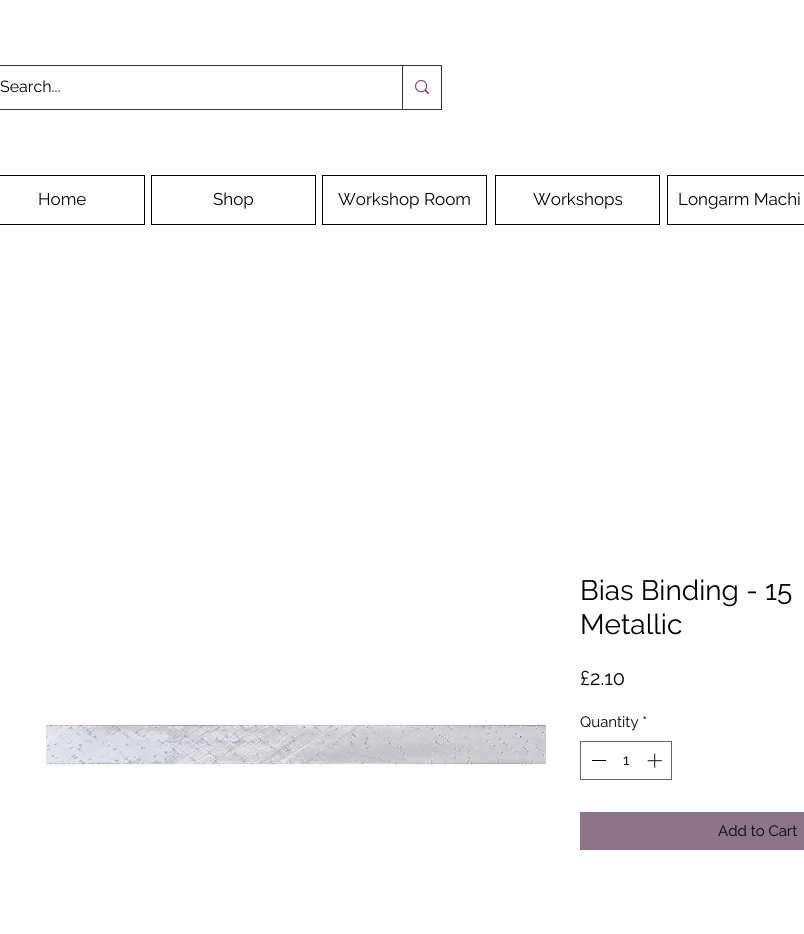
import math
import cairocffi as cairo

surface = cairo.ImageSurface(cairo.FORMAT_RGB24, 804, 934)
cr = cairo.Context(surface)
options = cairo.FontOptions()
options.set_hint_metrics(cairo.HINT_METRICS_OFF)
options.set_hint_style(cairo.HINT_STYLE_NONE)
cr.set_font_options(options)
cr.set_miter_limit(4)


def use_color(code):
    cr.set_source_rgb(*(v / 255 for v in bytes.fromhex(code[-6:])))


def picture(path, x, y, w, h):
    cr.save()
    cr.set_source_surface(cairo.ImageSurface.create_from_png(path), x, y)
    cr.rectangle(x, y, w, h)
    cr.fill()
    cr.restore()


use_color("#ffffff")
cr.paint()
cr.rectangle(-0.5, 65.5, 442, 44)
use_color("#323232")
cr.set_line_width(1)
cr.stroke()
cr.select_font_face("Raleway")
cr.set_font_size(16)
use_color("#000000")
cr.move_to(0, 92)
cr.show_text("Search...")
use_color("#323232")
cr.rectangle(402, 66, 1, 43)
cr.fill()
picture("img1.png", 415, 80, 14, 15)
cr.rectangle(-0.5, 175.5, 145, 49)
use_color("#000000")
cr.stroke()
cr.set_font_size(17)
cr.move_to(38, 205)
cr.show_text("Home")
cr.rectangle(151.5, 175.5, 164, 49)
cr.stroke()
cr.move_to(213, 205)
cr.show_text("Shop")
cr.rectangle(322.5, 175.5, 164, 49)
cr.stroke()
cr.move_to(338, 205)
cr.show_text("Workshop Room")
cr.rectangle(495.5, 175.5, 164, 49)
cr.stroke()
cr.move_to(533, 205)
cr.show_text("Workshops")
cr.rectangle(667.5, 175.5, 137, 49)
cr.stroke()
cr.move_to(678, 205)
cr.show_text("Longarm Machi")
picture("img2.png", 46, 723, 500, 44)
cr.set_font_size(28)
cr.move_to(580, 600)
cr.show_text("Bias Binding - 15")
cr.move_to(580, 634)
cr.show_text("Metallic")
cr.set_font_size(20)
cr.move_to(580, 685)
cr.show_text("£2.10")
cr.set_font_size(15)
cr.move_to(580, 727)
cr.show_text("Quantity *")
cr.rectangle(580.5, 741.5, 91, 38)
use_color("#666666")
cr.stroke()
use_color("#000000")
cr.rectangle(592, 760, 14, 1)
cr.fill()
cr.move_to(623, 765)
cr.show_text("1")
picture("img3.png", 647, 753, 15, 15)
use_color("#8c758b")
cr.rectangle(580, 812, 224, 38)
cr.fill()
use_color("#000000")
cr.move_to(718, 836)
cr.show_text("Add to Cart")
surface.write_to_png("result.png")
